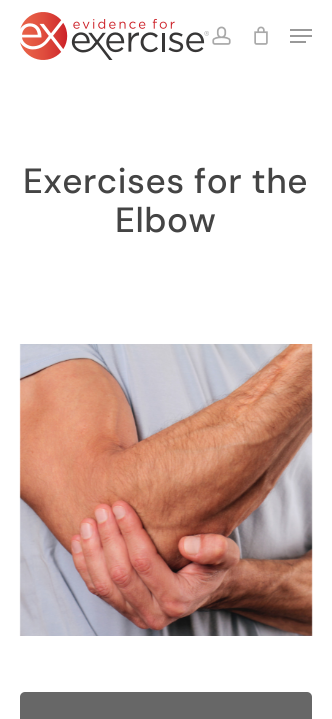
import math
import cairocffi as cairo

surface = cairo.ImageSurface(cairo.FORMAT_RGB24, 332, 719)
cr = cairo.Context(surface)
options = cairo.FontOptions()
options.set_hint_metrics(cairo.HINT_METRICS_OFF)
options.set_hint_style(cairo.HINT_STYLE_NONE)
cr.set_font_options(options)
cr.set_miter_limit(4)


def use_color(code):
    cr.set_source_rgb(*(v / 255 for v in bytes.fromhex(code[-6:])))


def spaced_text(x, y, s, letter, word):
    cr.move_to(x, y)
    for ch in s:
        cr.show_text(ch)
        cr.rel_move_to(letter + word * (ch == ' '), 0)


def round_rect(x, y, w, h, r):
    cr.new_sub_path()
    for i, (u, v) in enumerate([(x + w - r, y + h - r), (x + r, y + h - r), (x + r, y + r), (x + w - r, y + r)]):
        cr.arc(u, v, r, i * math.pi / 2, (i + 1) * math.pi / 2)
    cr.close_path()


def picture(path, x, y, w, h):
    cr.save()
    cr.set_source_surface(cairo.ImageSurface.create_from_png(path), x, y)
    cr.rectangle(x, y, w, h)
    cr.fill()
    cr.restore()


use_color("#ffffff")
cr.paint()
picture("img1.png", 20, 12, 189, 48)
picture("img2.png", 212, 26, 19, 19)
picture("img3.png", 254, 26, 14, 19)
use_color("#999999")
cr.rectangle(290, 29, 22, 2)
cr.fill()
cr.rectangle(290, 41, 16, 2)
cr.fill()
cr.rectangle(290, 35, 22, 2)
cr.fill()
cr.select_font_face("DM Sans Medium")
cr.set_font_size(35)
use_color("#444444")
spaced_text(23, 193, "Exercises for the", 0.5, 0)
spaced_text(115, 232, "Elbow", 0.5, 0)
picture("img4.png", 19, 344, 294, 292)
use_color("#676767")
round_rect(20, 692, 292, 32, 5)
cr.fill()
surface.write_to_png("result.png")
